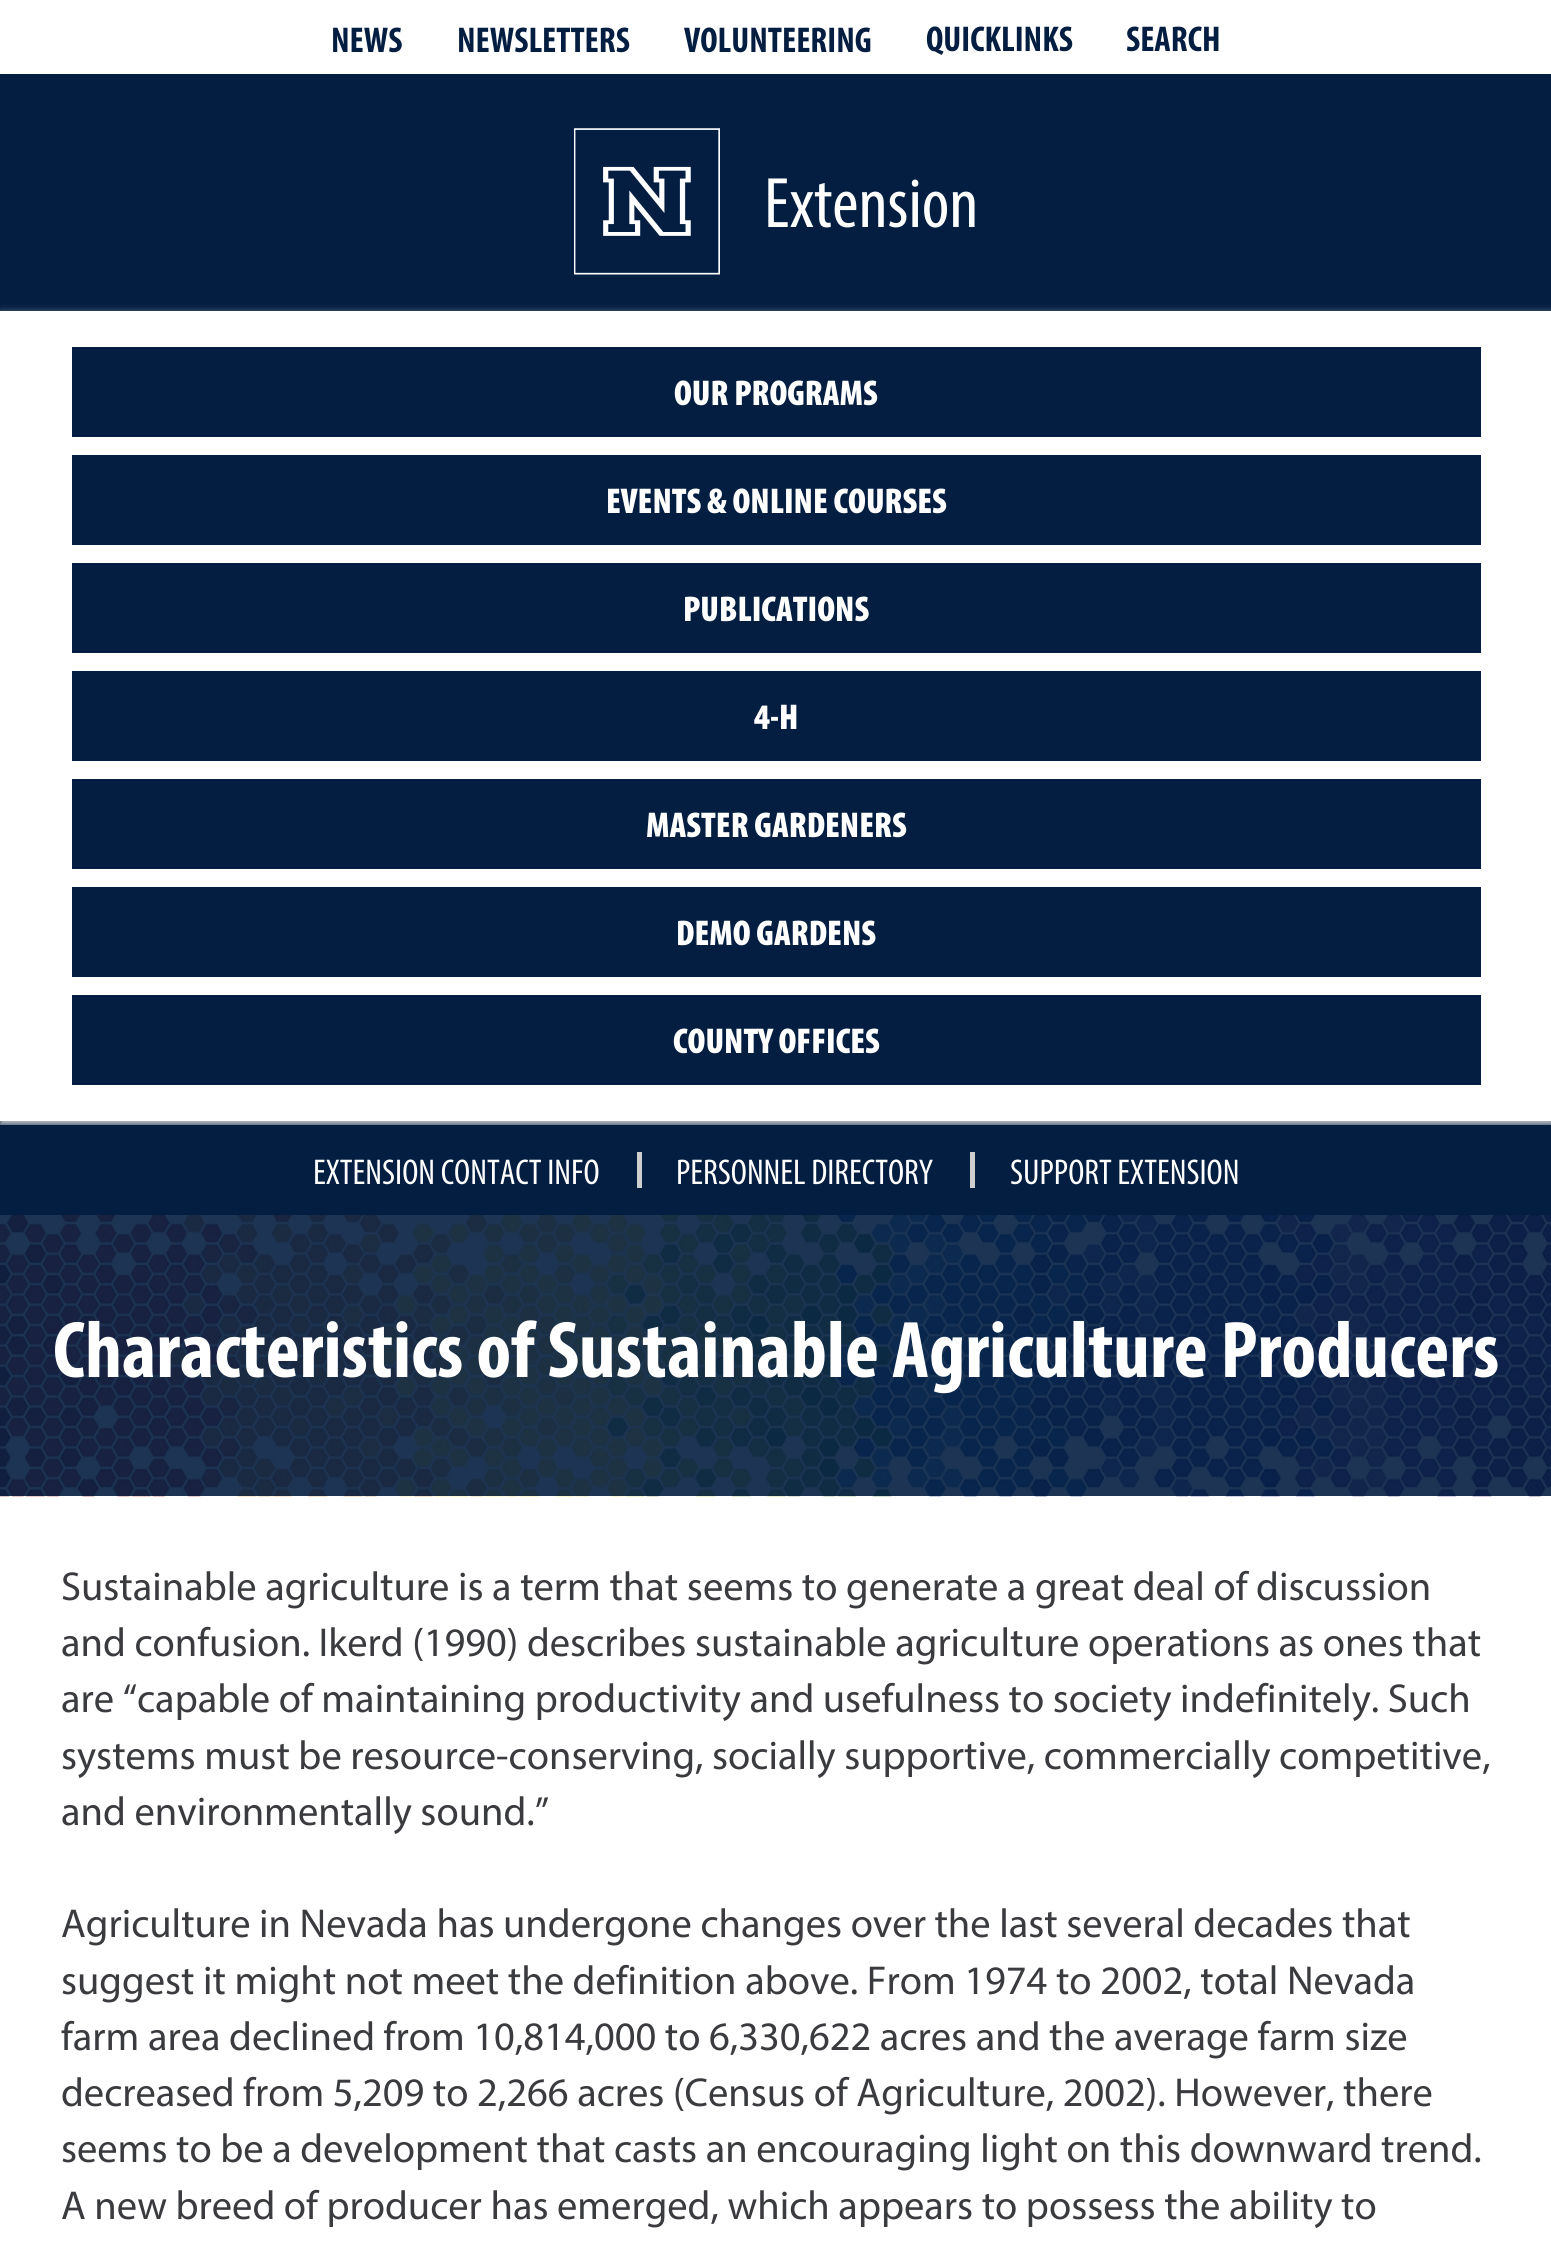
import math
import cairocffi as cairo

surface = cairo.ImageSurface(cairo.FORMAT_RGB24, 1551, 2246)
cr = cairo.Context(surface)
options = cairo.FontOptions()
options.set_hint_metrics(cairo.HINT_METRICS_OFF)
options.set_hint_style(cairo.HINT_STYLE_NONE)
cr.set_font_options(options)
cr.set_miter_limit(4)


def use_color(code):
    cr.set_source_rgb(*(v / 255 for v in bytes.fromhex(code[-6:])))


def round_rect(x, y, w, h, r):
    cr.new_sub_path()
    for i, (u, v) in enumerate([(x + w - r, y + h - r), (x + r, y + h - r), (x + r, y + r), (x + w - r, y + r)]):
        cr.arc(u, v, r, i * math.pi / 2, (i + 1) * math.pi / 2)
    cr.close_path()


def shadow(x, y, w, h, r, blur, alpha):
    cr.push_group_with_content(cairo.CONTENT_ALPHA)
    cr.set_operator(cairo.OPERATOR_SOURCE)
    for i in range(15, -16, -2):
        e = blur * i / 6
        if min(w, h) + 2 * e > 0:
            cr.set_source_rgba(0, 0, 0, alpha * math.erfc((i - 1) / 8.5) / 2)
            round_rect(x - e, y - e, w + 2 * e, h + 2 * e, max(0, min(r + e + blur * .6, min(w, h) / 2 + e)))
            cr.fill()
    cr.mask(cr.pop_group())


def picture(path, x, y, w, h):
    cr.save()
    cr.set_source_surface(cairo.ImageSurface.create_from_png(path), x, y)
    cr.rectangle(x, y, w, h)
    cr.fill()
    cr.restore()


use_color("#ffffff")
cr.paint()
use_color("#041e42")
cr.rectangle(0, 74, 1551, 1051)
cr.fill()
cr.select_font_face("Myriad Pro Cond", cairo.FONT_SLANT_NORMAL, cairo.FONT_WEIGHT_BOLD)
cr.set_font_size(36)
cr.move_to(331, 52)
cr.show_text("NEWS")
cr.move_to(457, 52)
cr.show_text("NEWSLETTERS")
cr.move_to(684, 52)
cr.show_text("VOLUNTEERING")
cr.move_to(926, 51)
cr.show_text("QUICKLINKS")
cr.move_to(1126, 51)
cr.show_text("SEARCH")
picture("img1.png", 574, 128, 146, 147)
cr.select_font_face("Myriad Pro Cond")
cr.set_font_size(72)
use_color("#ffffff")
cr.move_to(764, 227)
cr.show_text("Extension")
use_color("#d8d8d8")
shadow(0, 315, 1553, 810, 0, 4.5, 1)
use_color("#ffffff")
cr.rectangle(0, 311, 1551, 810)
cr.fill()
use_color("#041e42")
cr.rectangle(72, 347, 1409, 90)
cr.fill()
cr.select_font_face("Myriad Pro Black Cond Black")
cr.set_font_size(36)
use_color("#ffffff")
cr.move_to(674, 405)
cr.show_text("OUR PROGRAMS")
use_color("#041e42")
cr.rectangle(72, 455, 1409, 90)
cr.fill()
use_color("#ffffff")
cr.move_to(606, 513)
cr.show_text("EVENTS & ONLINE COURSES")
use_color("#041e42")
cr.rectangle(72, 563, 1409, 90)
cr.fill()
use_color("#ffffff")
cr.move_to(683, 621)
cr.show_text("PUBLICATIONS")
use_color("#041e42")
cr.rectangle(72, 671, 1409, 90)
cr.fill()
use_color("#ffffff")
cr.move_to(754, 729)
cr.show_text("4-H")
use_color("#041e42")
cr.rectangle(72, 779, 1409, 90)
cr.fill()
use_color("#ffffff")
cr.move_to(646, 837)
cr.show_text("MASTER GARDENERS")
use_color("#041e42")
cr.rectangle(72, 887, 1409, 90)
cr.fill()
use_color("#ffffff")
cr.move_to(676, 945)
cr.show_text("DEMO GARDENS")
use_color("#041e42")
cr.rectangle(72, 995, 1409, 90)
cr.fill()
use_color("#ffffff")
cr.move_to(673, 1053)
cr.show_text("COUNTY OFFICES")
use_color("#041e42")
cr.rectangle(0, 1125, 1551, 90)
cr.fill()
cr.select_font_face("Myriad Pro Cond")
use_color("#ffffff")
cr.move_to(313, 1184)
cr.show_text("EXTENSION CONTACT INFO")
use_color("#cecece")
cr.rectangle(637, 1152, 5, 36)
cr.fill()
use_color("#ffffff")
cr.move_to(676, 1184)
cr.show_text("PERSONNEL DIRECTORY")
use_color("#cecece")
cr.rectangle(970, 1152, 5, 36)
cr.fill()
use_color("#ffffff")
cr.move_to(1010, 1184)
cr.show_text("SUPPORT EXTENSION")
picture("img2.png", 0, 1215, 1551, 282)
cr.select_font_face("Myriad Pro Cond", cairo.FONT_SLANT_NORMAL, cairo.FONT_WEIGHT_BOLD)
cr.set_font_size(81)
cr.move_to(53, 1377)
cr.show_text("Characteristics of Sustainable Agriculture Producers")
cr.select_font_face("Myriad")
cr.set_font_size(40.5)
use_color("#3a3b3e")
cr.move_to(61, 1600)
cr.show_text("Sustainable agriculture is a term that seems to generate a great deal of discussion")
cr.move_to(61, 1656)
cr.show_text("and confusion. Ikerd (1990) describes sustainable agriculture operations as ones that")
cr.move_to(61, 1712)
cr.show_text("are “capable of maintaining productivity and usefulness to society indefinitely. Such")
cr.move_to(61, 1769)
cr.show_text("systems must be resource-conserving, socially supportive, commercially competitive,")
cr.move_to(61, 1825)
cr.show_text("and environmentally sound.”")
cr.move_to(61, 1937)
cr.show_text("Agriculture in Nevada has undergone changes over the last several decades that")
cr.move_to(61, 1994)
cr.show_text("suggest it might not meet the definition above. From 1974 to 2002, total Nevada")
cr.move_to(61, 2050)
cr.show_text("farm area declined from 10,814,000 to 6,330,622 acres and the average farm size")
cr.move_to(61, 2106)
cr.show_text("decreased from 5,209 to 2,266 acres (Census of Agriculture, 2002). However, there")
cr.move_to(61, 2162)
cr.show_text("seems to be a development that casts an encouraging light on this downward trend.")
cr.move_to(61, 2219)
cr.show_text("A new breed of producer has emerged, which appears to possess the ability to")
surface.write_to_png("result.png")
